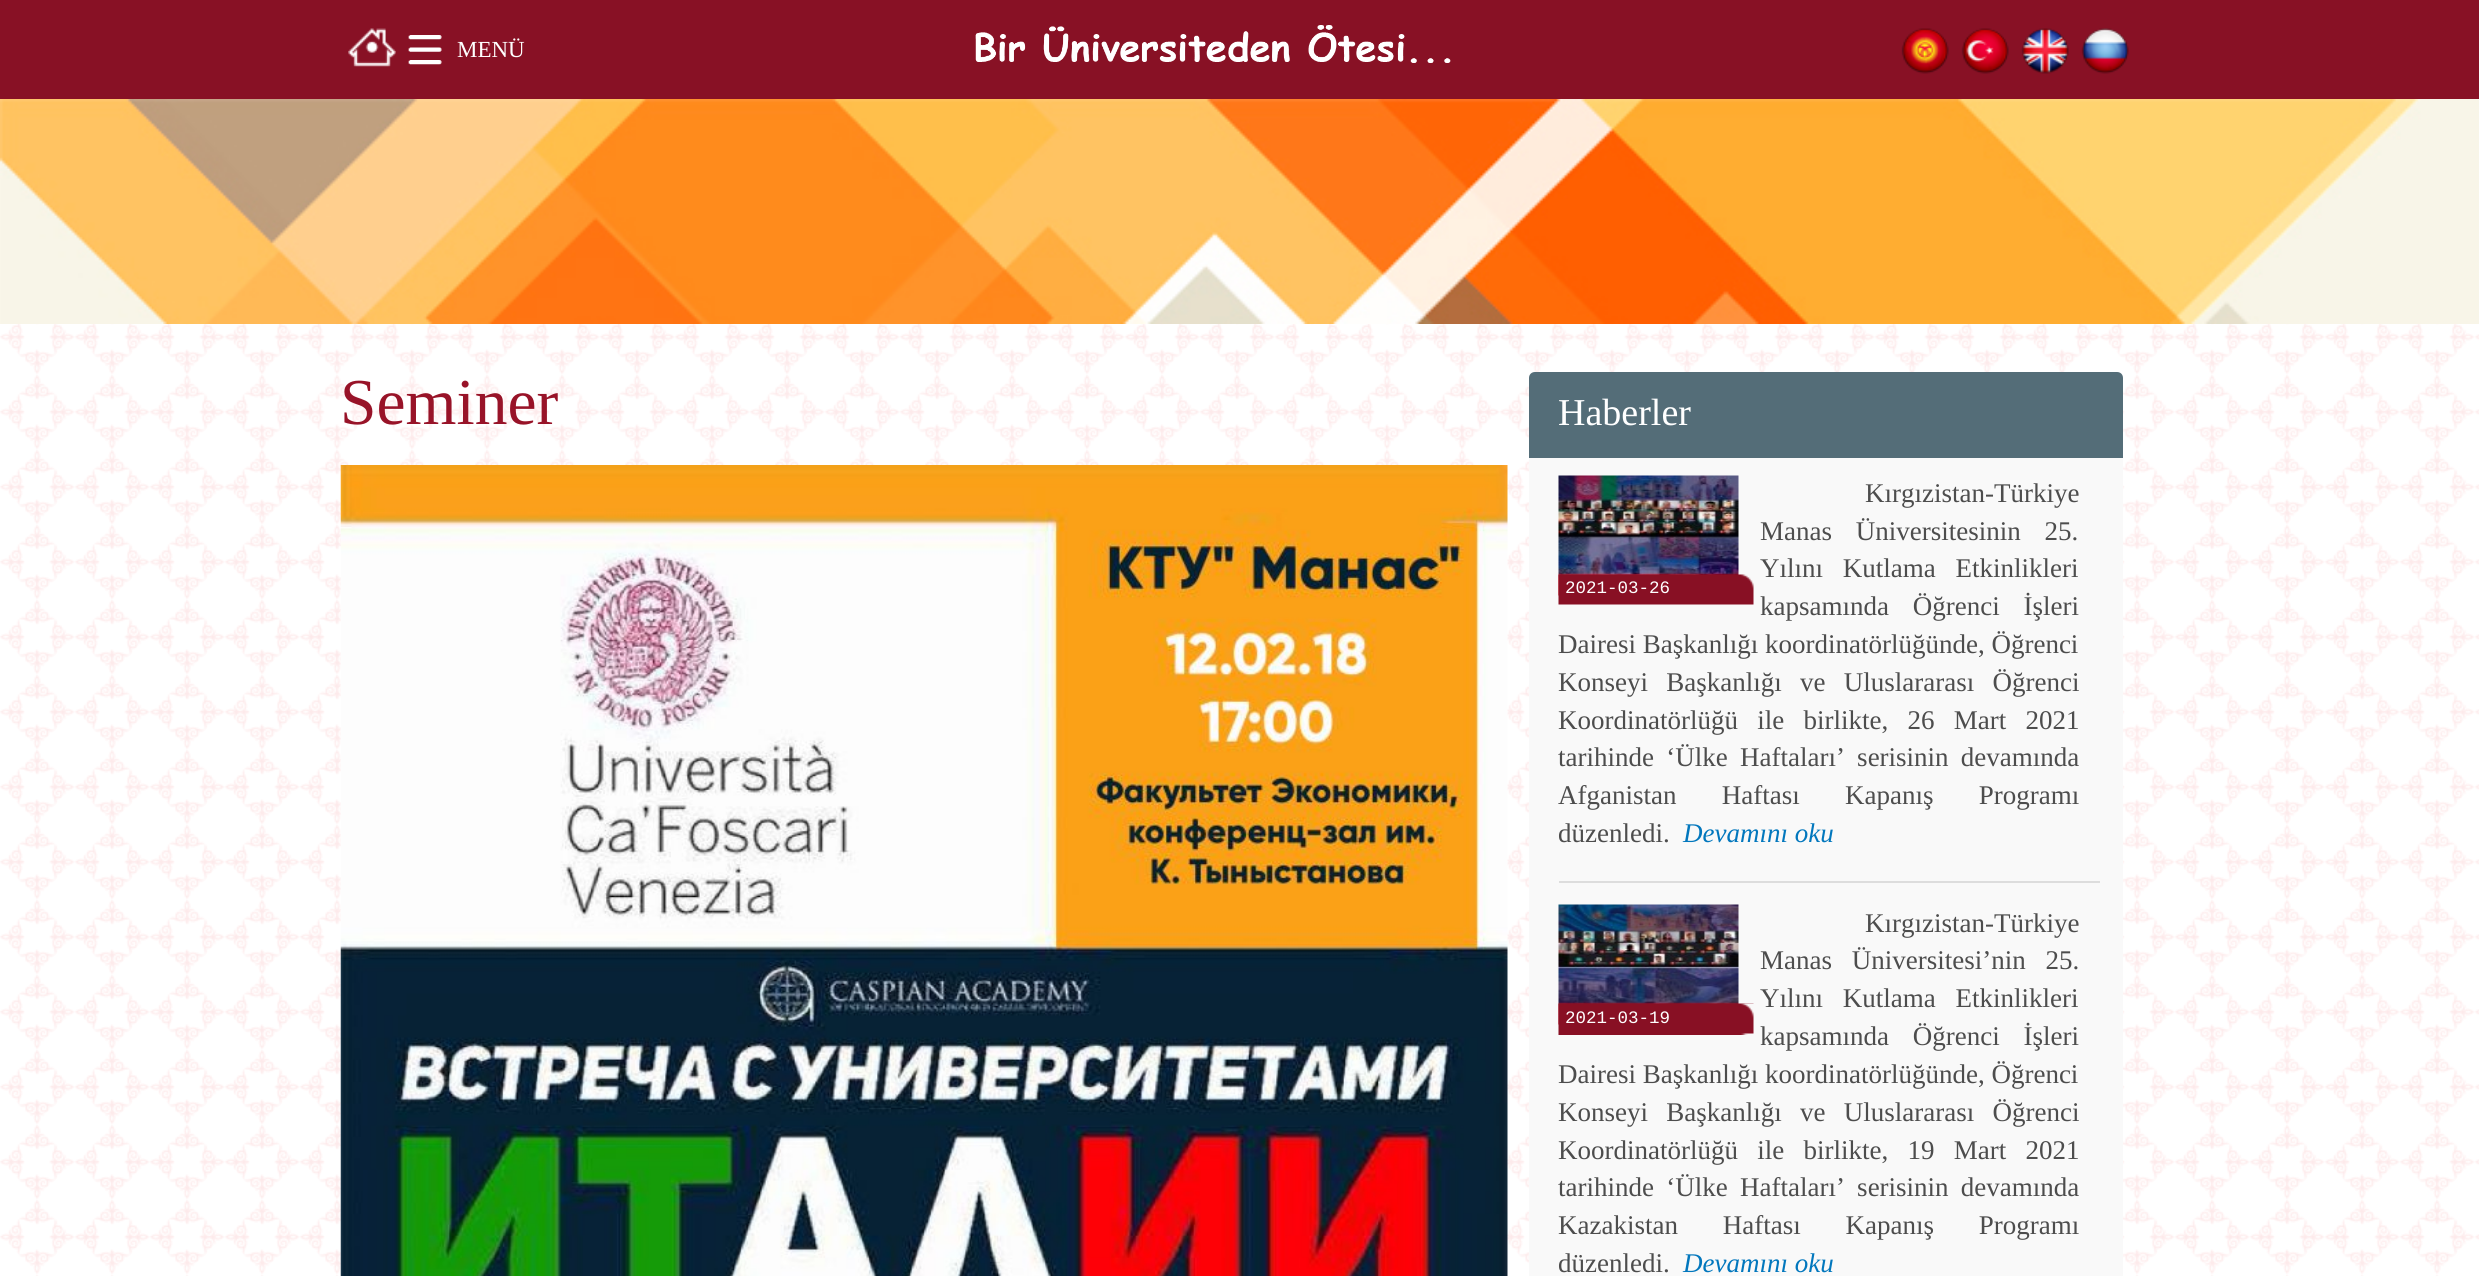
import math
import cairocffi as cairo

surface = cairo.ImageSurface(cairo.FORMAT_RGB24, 2479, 1276)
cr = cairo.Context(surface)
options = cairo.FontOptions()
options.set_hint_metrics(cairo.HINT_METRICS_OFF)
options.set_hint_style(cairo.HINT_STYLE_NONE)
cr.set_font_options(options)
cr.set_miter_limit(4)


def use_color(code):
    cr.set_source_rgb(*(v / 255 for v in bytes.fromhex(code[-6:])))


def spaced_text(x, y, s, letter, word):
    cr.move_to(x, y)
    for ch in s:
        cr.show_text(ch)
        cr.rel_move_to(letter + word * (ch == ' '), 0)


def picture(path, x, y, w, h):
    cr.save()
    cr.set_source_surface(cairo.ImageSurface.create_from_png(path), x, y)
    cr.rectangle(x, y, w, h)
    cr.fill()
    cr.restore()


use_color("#ffffff")
cr.paint()
picture("img1.png", 0, 324, 2479, 952)
use_color("#881125")
cr.rectangle(0, 0, 2479, 99)
cr.fill()
picture("img2.png", 348, 28, 48, 39)
picture("img3.png", 408, 35, 34, 30)
cr.select_font_face("Liberation Serif")
cr.set_font_size(23)
use_color("#ffffff")
cr.move_to(457, 57)
cr.show_text("MENÜ")
picture("img4.png", 975, 25, 476, 38)
picture("img5.png", 1901, 28, 48, 46)
picture("img6.png", 1961, 28, 48, 46)
picture("img7.png", 2021, 28, 48, 46)
picture("img8.png", 2081, 28, 48, 46)
picture("img9.png", 0, 99, 2479, 225)
cr.set_font_size(65.5)
use_color("#981328")
cr.move_to(340, 424)
cr.show_text("Seminer")
picture("img10.png", 340, 465, 1168, 811)
use_color("#546d78")
cr.new_path()
cr.move_to(1535, 372)
cr.line_to(2117, 372)
cr.curve_to(2120.5, 372, 2123, 374.5, 2123, 378)
cr.line_to(2123, 458)
cr.line_to(1529, 458)
cr.line_to(1529, 378)
cr.curve_to(1529, 374.5, 1531.5, 372, 1535, 372)
cr.close_path()
cr.fill()
cr.set_font_size(38)
use_color("#ffffff")
cr.move_to(1558, 425)
cr.show_text("Haberler")
use_color("#f9f9f9")
cr.rectangle(1529, 458, 594, 818)
cr.fill()
cr.set_font_size(27)
use_color("#4d4d4d")
cr.move_to(1865, 502)
cr.show_text("Kırgızistan-Türkiye")
spaced_text(1760, 540, "Manas Üniversitesinin 25.", 0, 17)
spaced_text(1760, 577, "Yılını Kutlama Etkinlikleri", 0, 13)
spaced_text(1760, 615, "kapsamında Öğrenci İşleri", 0, 17)
cr.move_to(1558, 653)
cr.show_text("Dairesi Başkanlığı koordinatörlüğünde, Öğrenci")
spaced_text(1558, 691, "Konseyi Başkanlığı ve Uluslararası Öğrenci", 0, 11.5)
spaced_text(1558, 729, "Koordinatörlüğü ile birlikte, 26 Mart 2021", 0, 12.5)
spaced_text(1558, 766, "tarihinde ‘Ülke Haftaları’ serisinin devamında", 0, 5.5)
spaced_text(1558, 804, "Afganistan Haftası Kapanış Programı", 0, 38.5)
cr.move_to(1558, 842)
cr.show_text("düzenledi.")
cr.select_font_face("Liberation Serif", cairo.FONT_SLANT_ITALIC)
use_color("#0277bd")
cr.move_to(1683, 842)
cr.show_text("Devamını oku")
picture("img11.png", 1558, 475, 181, 121)
picture("img12.png", 1558, 574, 196, 31)
cr.select_font_face("Liberation Mono")
cr.set_font_size(17.5)
use_color("#ffffff")
cr.move_to(1565, 593)
cr.show_text("2021-03-26")
use_color("#dddddd")
cr.rectangle(1559, 881, 541, 2)
cr.fill()
cr.select_font_face("Liberation Serif")
cr.set_font_size(27)
use_color("#4d4d4d")
cr.move_to(1865, 932)
cr.show_text("Kırgızistan-Türkiye")
spaced_text(1760, 969, "Manas Üniversitesi’nin 25.", 0, 13)
spaced_text(1760, 1007, "Yılını Kutlama Etkinlikleri", 0, 13)
spaced_text(1760, 1045, "kapsamında Öğrenci İşleri", 0, 17)
cr.move_to(1558, 1083)
cr.show_text("Dairesi Başkanlığı koordinatörlüğünde, Öğrenci")
spaced_text(1558, 1121, "Konseyi Başkanlığı ve Uluslararası Öğrenci", 0, 11.5)
spaced_text(1558, 1159, "Koordinatörlüğü ile birlikte, 19 Mart 2021", 0, 12.5)
spaced_text(1558, 1196, "tarihinde ‘Ülke Haftaları’ serisinin devamında", 0, 5.5)
spaced_text(1558, 1234, "Kazakistan Haftası Kapanış Programı", 0, 38)
cr.move_to(1558, 1272)
cr.show_text("düzenledi.")
cr.select_font_face("Liberation Serif", cairo.FONT_SLANT_ITALIC)
use_color("#0277bd")
cr.move_to(1683, 1272)
cr.show_text("Devamını oku")
picture("img13.png", 1558, 904, 181, 121)
picture("img14.png", 1558, 1003, 196, 32)
cr.select_font_face("Liberation Mono")
cr.set_font_size(17.5)
use_color("#ffffff")
cr.move_to(1565, 1023)
cr.show_text("2021-03-19")
surface.write_to_png("result.png")
